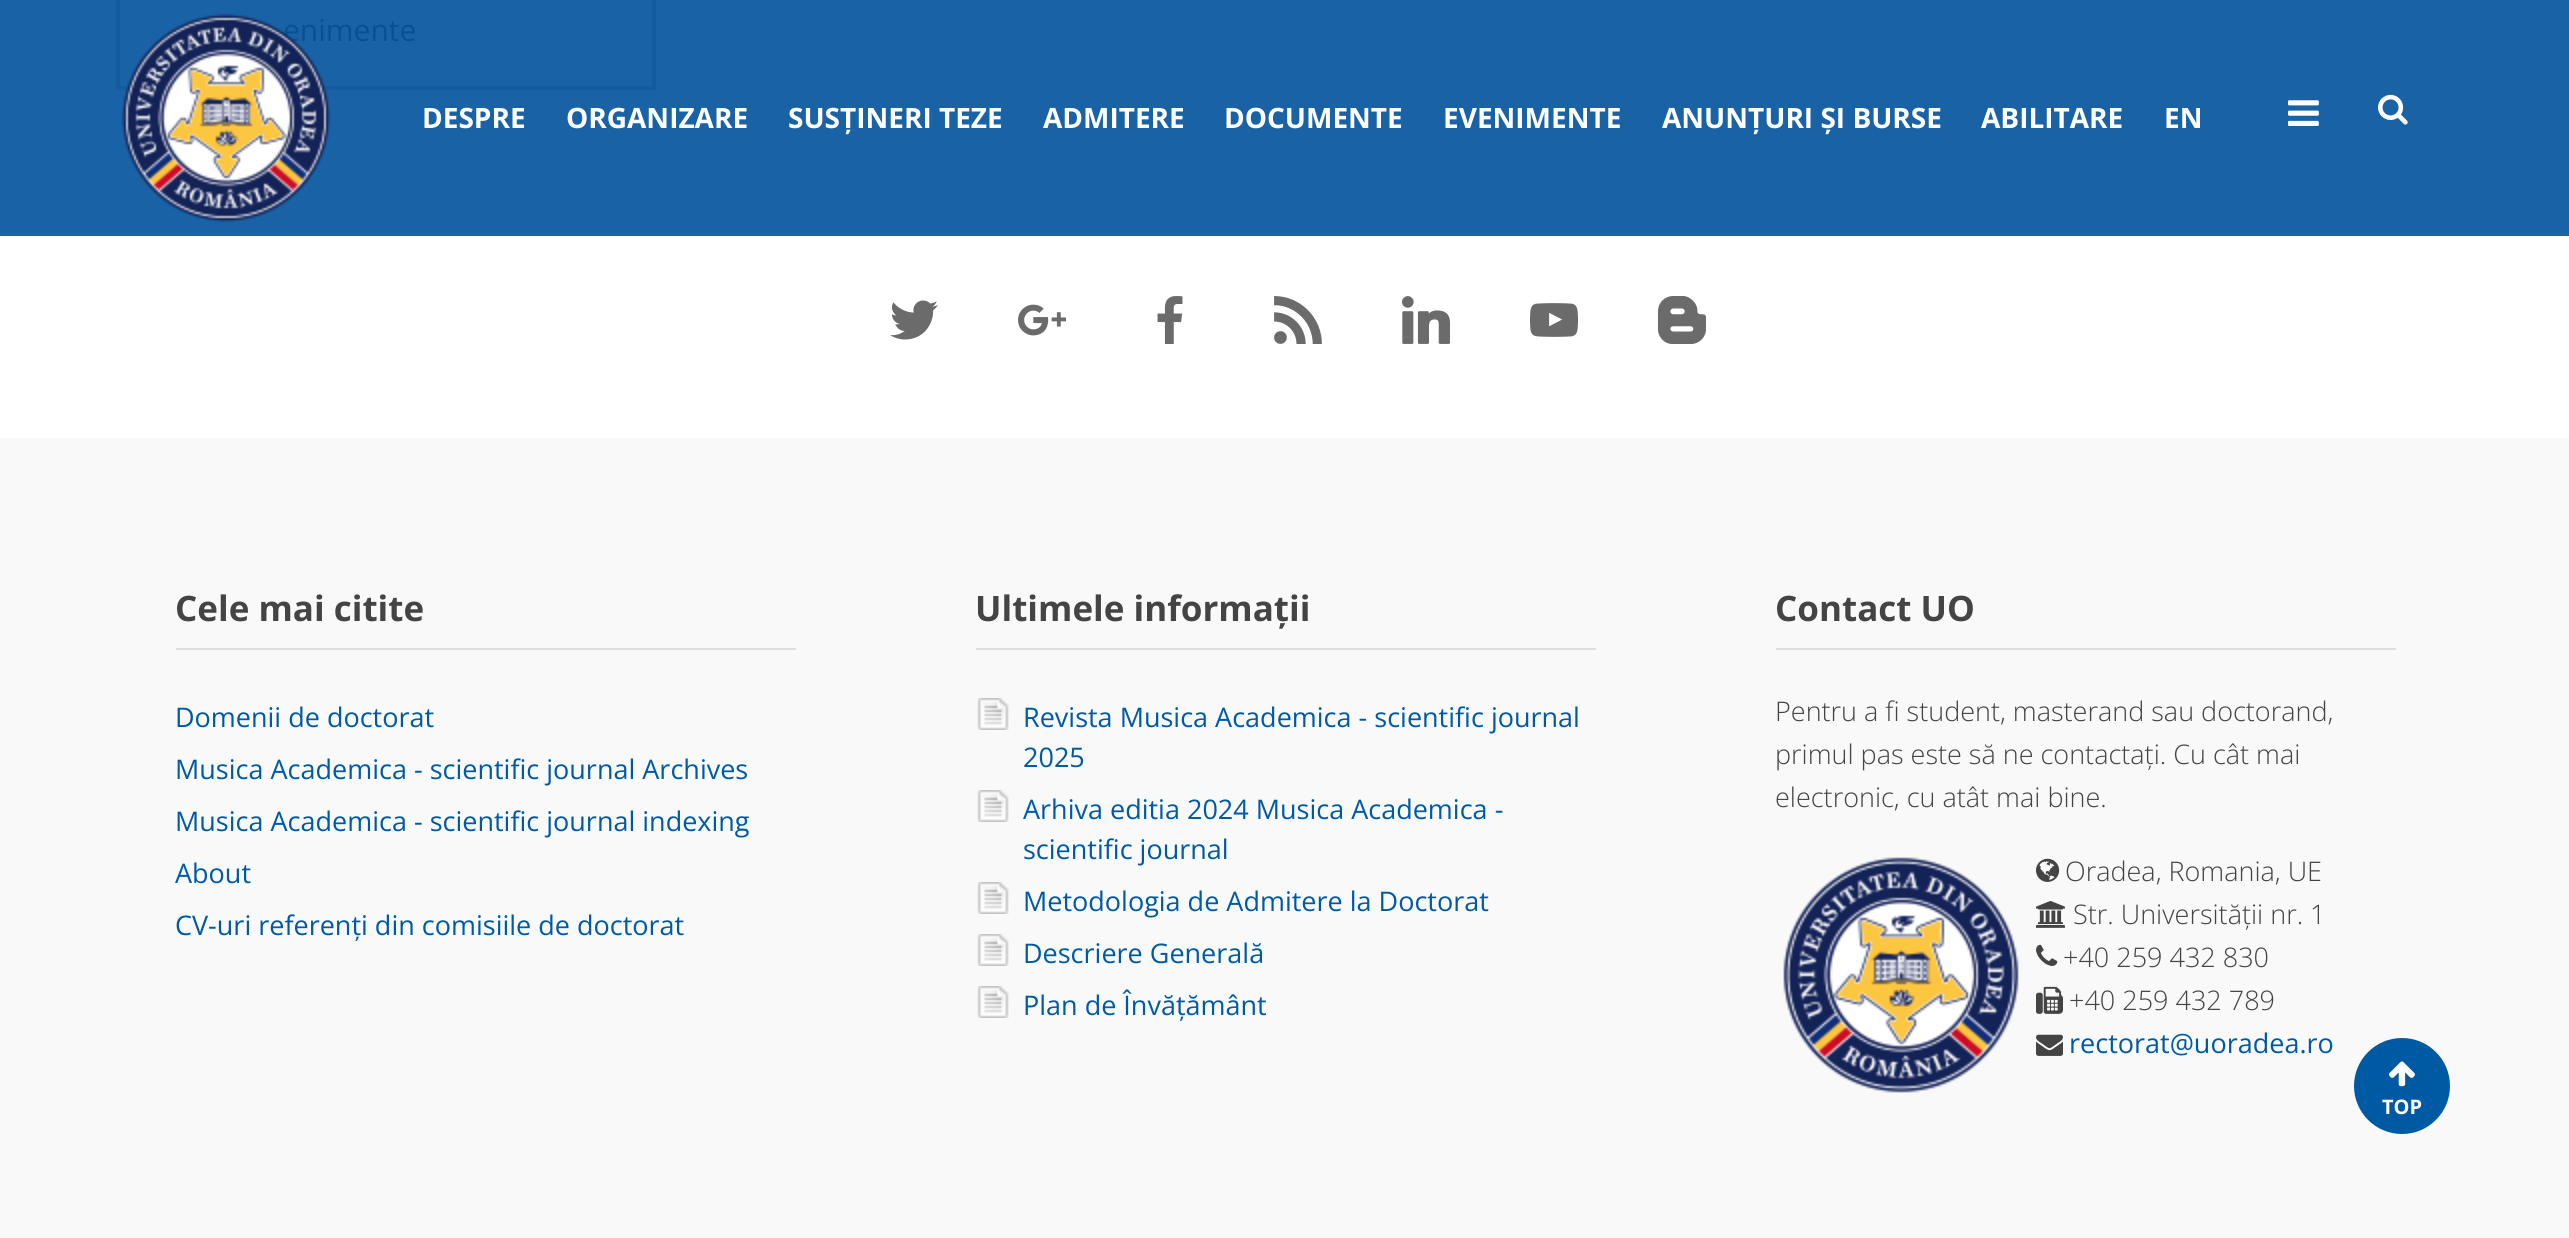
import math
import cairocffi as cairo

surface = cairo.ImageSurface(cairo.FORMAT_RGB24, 2569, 1238)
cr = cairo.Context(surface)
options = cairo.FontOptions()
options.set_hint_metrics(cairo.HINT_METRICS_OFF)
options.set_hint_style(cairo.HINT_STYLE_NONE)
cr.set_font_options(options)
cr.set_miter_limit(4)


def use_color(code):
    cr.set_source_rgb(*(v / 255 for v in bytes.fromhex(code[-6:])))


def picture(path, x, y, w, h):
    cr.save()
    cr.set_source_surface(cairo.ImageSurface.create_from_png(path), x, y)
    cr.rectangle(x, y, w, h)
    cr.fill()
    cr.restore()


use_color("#ffffff")
cr.paint()
use_color("#1962a5")
cr.rectangle(0, 0, 2569, 236)
cr.fill()
cr.rectangle(118, -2, 536, 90)
use_color("#145c9f")
cr.set_line_width(4)
cr.stroke()
cr.select_font_face("Open Sans")
cr.set_font_size(30)
use_color("#085093")
cr.move_to(283, 41)
cr.show_text("enimente")
picture("img1.png", 121, 13, 210, 210)
cr.select_font_face("Open Sans", cairo.FONT_SLANT_NORMAL, cairo.FONT_WEIGHT_BOLD)
cr.set_font_size(28)
use_color("#ffffff")
cr.move_to(422, 128)
cr.show_text("DESPRE")
cr.move_to(566, 128)
cr.show_text("ORGANIZARE")
cr.move_to(788, 128)
cr.show_text("SUSȚINERI TEZE")
cr.move_to(1043, 128)
cr.show_text("ADMITERE")
cr.move_to(1224, 128)
cr.show_text("DOCUMENTE")
cr.move_to(1443, 128)
cr.show_text("EVENIMENTE")
cr.move_to(1662, 128)
cr.show_text("ANUNȚURI ȘI BURSE")
cr.move_to(1981, 128)
cr.show_text("ABILITARE")
cr.move_to(2164, 128)
cr.show_text("EN")
picture("img2.png", 2288, 100, 31, 26)
picture("img3.png", 2378, 94, 30, 31)
picture("img4.png", 890, 300, 48, 40)
picture("img5.png", 1018, 304, 48, 32)
picture("img6.png", 1157, 296, 26, 48)
picture("img7.png", 1274, 296, 48, 48)
picture("img8.png", 1402, 296, 48, 48)
picture("img9.png", 1530, 303, 48, 34)
picture("img10.png", 1658, 296, 48, 48)
use_color("#f9f9f9")
cr.rectangle(0, 438, 2569, 800)
cr.fill()
use_color("#dedede")
cr.rectangle(176, 648, 620, 2)
cr.fill()
cr.set_font_size(35)
use_color("#444444")
cr.move_to(175, 621)
cr.show_text("Cele mai citite")
cr.select_font_face("Open Sans")
cr.set_font_size(27)
use_color("#005aa3")
cr.move_to(175, 727)
cr.show_text("Domenii de doctorat")
cr.move_to(175, 779)
cr.show_text("Musica Academica - scientific journal Archives")
cr.move_to(175, 831)
cr.show_text("Musica Academica - scientific journal indexing")
cr.move_to(175, 883)
cr.show_text("About")
cr.move_to(175, 935)
cr.show_text("CV-uri referenți din comisiile de doctorat")
use_color("#dedede")
cr.rectangle(976, 648, 620, 2)
cr.fill()
cr.select_font_face("Open Sans", cairo.FONT_SLANT_NORMAL, cairo.FONT_WEIGHT_BOLD)
cr.set_font_size(35)
use_color("#444444")
cr.move_to(975, 621)
cr.show_text("Ultimele informații")
picture("img11.png", 977, 698, 32, 32)
cr.select_font_face("Open Sans")
cr.set_font_size(27)
use_color("#005aa3")
cr.move_to(1023, 727)
cr.show_text("Revista Musica Academica - scientific journal")
cr.move_to(1023, 767)
cr.show_text("2025")
picture("img11.png", 977, 790, 32, 32)
cr.move_to(1023, 819)
cr.show_text("Arhiva editia 2024 Musica Academica -")
cr.move_to(1023, 859)
cr.show_text("scientific journal")
picture("img11.png", 977, 882, 32, 32)
cr.move_to(1023, 911)
cr.show_text("Metodologia de Admitere la Doctorat")
picture("img11.png", 977, 934, 32, 32)
cr.move_to(1023, 963)
cr.show_text("Descriere Generală")
picture("img11.png", 977, 986, 32, 32)
cr.move_to(1023, 1015)
cr.show_text("Plan de Învățământ")
use_color("#dedede")
cr.rectangle(1776, 648, 620, 2)
cr.fill()
cr.select_font_face("Open Sans", cairo.FONT_SLANT_NORMAL, cairo.FONT_WEIGHT_BOLD)
cr.set_font_size(35)
use_color("#444444")
cr.move_to(1775, 621)
cr.show_text("Contact UO")
cr.select_font_face("Open Sans Light")
cr.set_font_size(27)
cr.move_to(1775, 721)
cr.show_text("Pentru a fi student, masterand sau doctorand,")
cr.move_to(1775, 764)
cr.show_text("primul pas este să ne contactați. Cu cât mai")
cr.move_to(1775, 807)
cr.show_text("electronic, cu atât mai bine.")
picture("img12.png", 1783, 857, 236, 236)
picture("img13.png", 2036, 858, 24, 24)
cr.move_to(2065, 881)
cr.show_text("Oradea, Romania, UE")
picture("img14.png", 2036, 900, 29, 28)
cr.move_to(2073, 924)
cr.show_text("Str. Universității nr. 1")
picture("img15.png", 2036, 944, 22, 22)
cr.move_to(2063, 967)
cr.show_text("+40 259 432 830")
picture("img16.png", 2036, 986, 27, 28)
cr.move_to(2069, 1010)
cr.show_text("+40 259 432 789")
picture("img17.png", 2036, 1034, 27, 22)
cr.select_font_face("Open Sans")
use_color("#005aa3")
cr.move_to(2069, 1053)
cr.show_text("rectorat@uoradea.ro")
cr.new_path()
cr.arc(2402, 1086, 48, 0, 2 * math.pi)
cr.fill()
picture("img18.png", 2388, 1061, 27, 26)
cr.select_font_face("Open Sans", cairo.FONT_SLANT_NORMAL, cairo.FONT_WEIGHT_BOLD)
cr.set_font_size(20)
use_color("#ffffff")
cr.move_to(2382, 1114)
cr.show_text("TOP")
surface.write_to_png("result.png")
